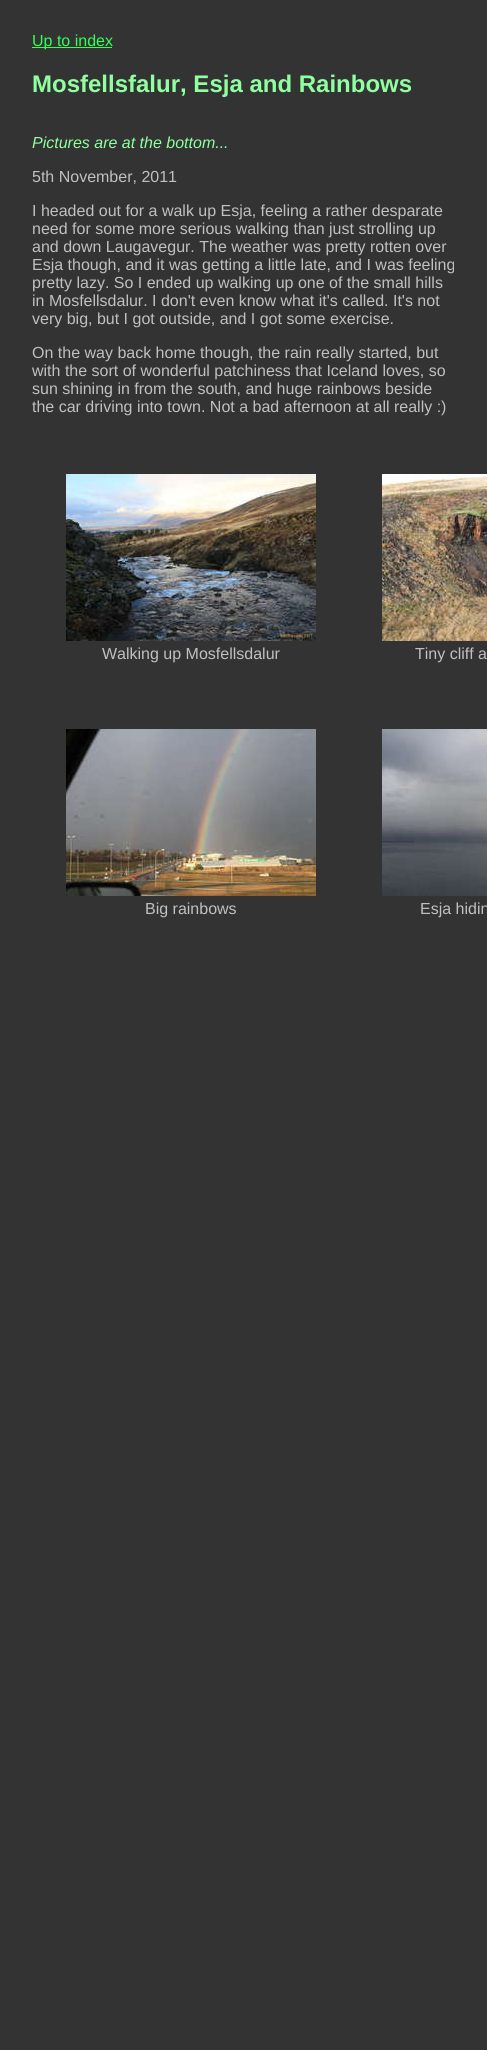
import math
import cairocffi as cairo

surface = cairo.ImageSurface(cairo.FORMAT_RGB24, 487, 2050)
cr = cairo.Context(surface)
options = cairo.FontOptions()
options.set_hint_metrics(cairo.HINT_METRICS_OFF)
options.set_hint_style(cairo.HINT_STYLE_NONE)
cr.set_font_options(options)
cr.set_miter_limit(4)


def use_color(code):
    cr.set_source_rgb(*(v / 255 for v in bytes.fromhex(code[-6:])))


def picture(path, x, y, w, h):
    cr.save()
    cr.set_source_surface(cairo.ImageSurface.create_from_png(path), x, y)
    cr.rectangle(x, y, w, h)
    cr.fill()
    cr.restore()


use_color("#333333")
cr.paint()
use_color("#33ff55")
cr.rectangle(32, 47, 80, 1)
cr.fill()
cr.select_font_face("Liberation Sans")
cr.set_font_size(16)
cr.move_to(32, 46)
cr.show_text("Up to index")
cr.select_font_face("Liberation Sans", cairo.FONT_SLANT_NORMAL, cairo.FONT_WEIGHT_BOLD)
cr.set_font_size(24)
use_color("#90ffa0")
cr.move_to(32, 92)
cr.show_text("Mosfellsfalur, Esja and Rainbows")
cr.select_font_face("Liberation Sans", cairo.FONT_SLANT_ITALIC)
cr.set_font_size(16)
cr.move_to(32, 148)
cr.show_text("Pictures are at the bottom...")
cr.select_font_face("Liberation Sans")
use_color("#c0c0c0")
cr.move_to(32, 182)
cr.show_text("5th November, 2011")
cr.move_to(32, 216)
cr.show_text("I headed out for a walk up Esja, feeling a rather desparate")
cr.move_to(32, 234)
cr.show_text("need for some more serious walking than just strolling up")
cr.move_to(32, 252)
cr.show_text("and down Laugavegur. The weather was pretty rotten over")
cr.move_to(32, 270)
cr.show_text("Esja though, and it was getting a little late, and I was feeling")
cr.move_to(32, 288)
cr.show_text("pretty lazy. So I ended up walking up one of the small hills")
cr.move_to(32, 306)
cr.show_text("in Mosfellsdalur. I don't even know what it's called. It's not")
cr.move_to(32, 324)
cr.show_text("very big, but I got outside, and I got some exercise.")
cr.move_to(32, 358)
cr.show_text("On the way back home though, the rain really started, but")
cr.move_to(32, 376)
cr.show_text("with the sort of wonderful patchiness that Iceland loves, so")
cr.move_to(32, 394)
cr.show_text("sun shining in from the south, and huge rainbows beside")
cr.move_to(32, 412)
cr.show_text("the car driving into town. Not a bad afternoon at all really :)")
picture("img1.png", 66, 474, 250, 167)
cr.move_to(102, 659)
cr.show_text("Walking up Mosfellsdalur")
picture("img2.png", 382, 474, 105, 167)
cr.move_to(415, 659)
cr.show_text("Tiny cliff a")
picture("img3.png", 66, 729, 250, 167)
cr.move_to(145, 914)
cr.show_text("Big rainbows")
picture("img4.png", 382, 729, 105, 167)
cr.move_to(420, 914)
cr.show_text("Esja hidin")
surface.write_to_png("result.png")
